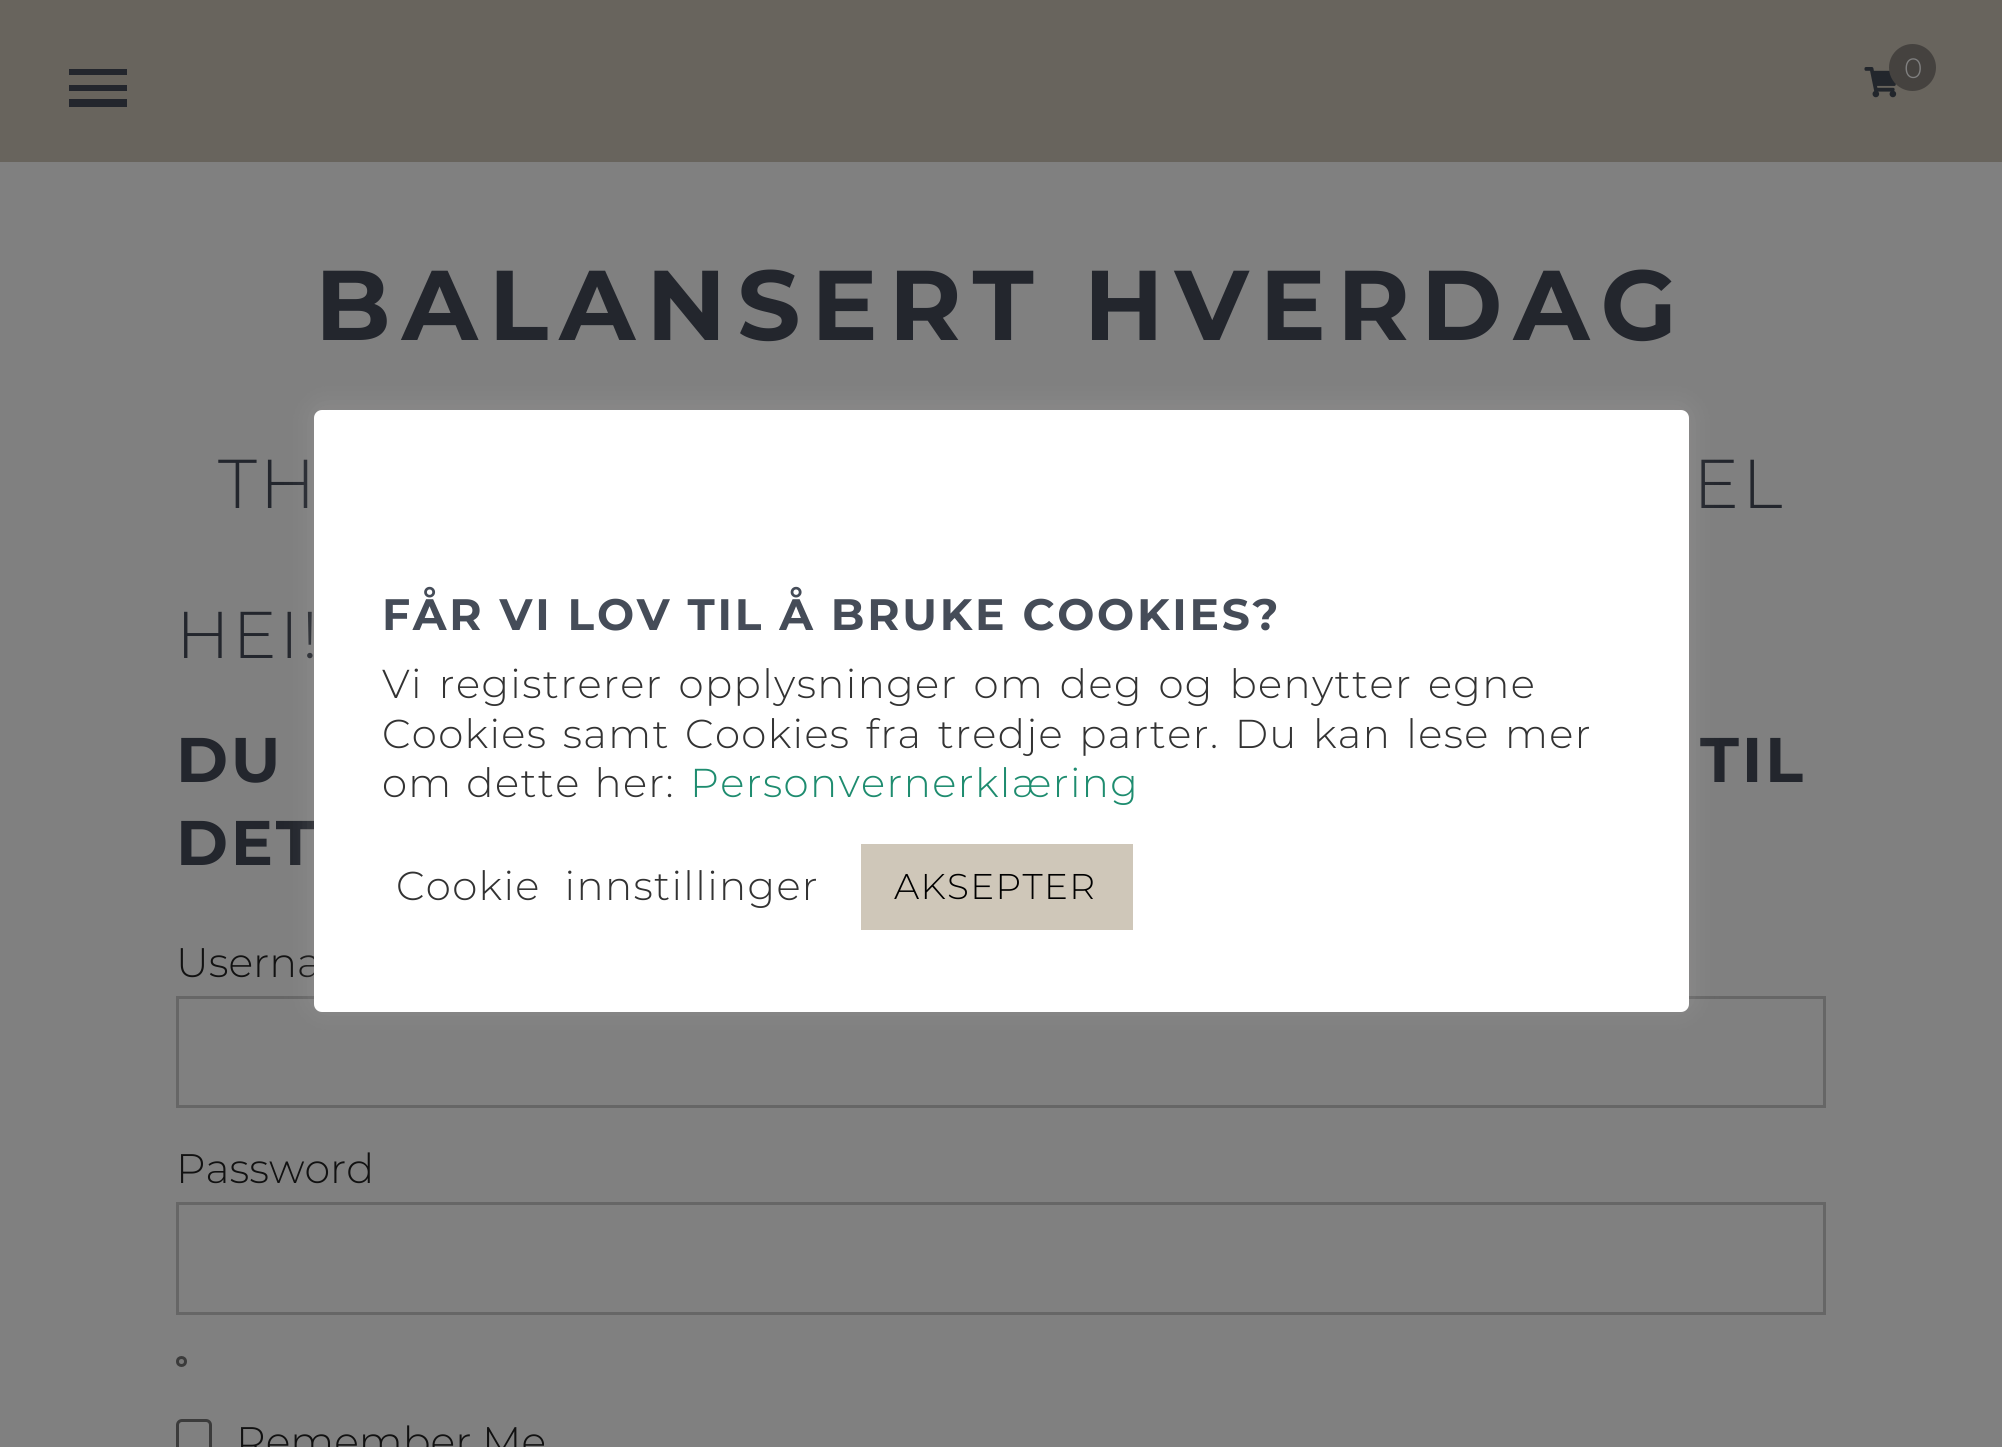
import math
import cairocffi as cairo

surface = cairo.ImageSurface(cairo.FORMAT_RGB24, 2002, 1447)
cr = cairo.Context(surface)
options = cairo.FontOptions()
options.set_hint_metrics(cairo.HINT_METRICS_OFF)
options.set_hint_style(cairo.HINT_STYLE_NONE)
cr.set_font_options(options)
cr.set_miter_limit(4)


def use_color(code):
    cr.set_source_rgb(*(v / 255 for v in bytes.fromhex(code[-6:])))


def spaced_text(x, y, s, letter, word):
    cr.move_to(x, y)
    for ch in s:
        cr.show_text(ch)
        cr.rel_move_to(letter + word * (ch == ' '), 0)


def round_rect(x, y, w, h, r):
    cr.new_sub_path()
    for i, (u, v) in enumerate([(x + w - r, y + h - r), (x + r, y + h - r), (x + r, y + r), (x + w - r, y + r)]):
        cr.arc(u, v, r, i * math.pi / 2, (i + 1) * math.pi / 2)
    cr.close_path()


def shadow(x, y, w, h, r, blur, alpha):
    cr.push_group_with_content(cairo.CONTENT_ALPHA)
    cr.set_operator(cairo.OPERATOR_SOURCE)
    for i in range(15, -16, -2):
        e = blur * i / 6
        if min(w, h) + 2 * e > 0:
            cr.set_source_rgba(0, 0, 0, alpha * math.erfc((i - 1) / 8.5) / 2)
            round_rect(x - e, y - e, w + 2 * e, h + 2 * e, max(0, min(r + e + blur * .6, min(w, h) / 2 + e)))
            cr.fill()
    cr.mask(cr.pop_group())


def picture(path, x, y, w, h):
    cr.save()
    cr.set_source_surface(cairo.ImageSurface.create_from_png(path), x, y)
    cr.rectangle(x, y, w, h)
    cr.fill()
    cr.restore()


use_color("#808080")
cr.paint()
use_color("#68645d")
cr.rectangle(0, 0, 2002, 162)
cr.fill()
use_color("#23262d")
cr.rectangle(69, 69, 58, 6)
cr.fill()
cr.rectangle(69, 85, 58, 6)
cr.fill()
cr.rectangle(69, 99, 58, 8)
cr.fill()
picture("img1.png", 1864, 67, 33, 31)
use_color("#45423f")
cr.arc(1912.5, 67.5, 23.5, 0, 2 * math.pi)
cr.fill()
cr.select_font_face("Montserrat Light")
cr.set_font_size(28)
use_color("#808080")
cr.move_to(1904, 78)
cr.show_text("0")
cr.select_font_face("Montserrat", cairo.FONT_SLANT_NORMAL, cairo.FONT_WEIGHT_BOLD)
cr.set_font_size(99)
use_color("#23262d")
spaced_text(315, 340, "BALANSERT HVERDAG", 11, 0)
cr.select_font_face("Montserrat Light")
cr.set_font_size(69)
spaced_text(218, 508, "TH", 2.75, 0)
spaced_text(1693, 508, "EL", 2.75, 0)
cr.set_font_size(66)
spaced_text(176, 658, "HEI!", 2.75, 0)
cr.select_font_face("Montserrat", cairo.FONT_SLANT_NORMAL, cairo.FONT_WEIGHT_BOLD)
cr.set_font_size(63)
spaced_text(176, 782, "DU", 2.75, 0)
spaced_text(1700, 782, "TIL", 2.75, 0)
spaced_text(176, 865, "DET", 2.75, 0)
cr.select_font_face("Montserrat Light")
cr.set_font_size(41.25)
use_color("#111111")
cr.move_to(176, 977)
cr.show_text("Userna")
cr.rectangle(177.5, 997.5, 1647, 109)
use_color("#666666")
cr.set_line_width(3)
cr.stroke()
use_color("#111111")
cr.move_to(176, 1183)
cr.show_text("Password")
cr.rectangle(177.5, 1203.5, 1647, 110)
use_color("#666666")
cr.stroke()
use_color("#787878")
cr.arc(181.5, 1361.5, 4, 0, 2 * math.pi)
cr.fill_preserve()
use_color("#3b3b3b")
cr.stroke()
round_rect(177.5, 1420.5, 33, 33, 4.5)
cr.stroke()
use_color("#111111")
cr.move_to(236, 1456)
cr.show_text("Remember Me")
use_color("#acabab")
shadow(314, 407, 1375, 602, 8, 14, 0.3)
use_color("#ffffff")
round_rect(314, 410, 1375, 602, 8)
cr.fill()
cr.select_font_face("Montserrat", cairo.FONT_SLANT_NORMAL, cairo.FONT_WEIGHT_BOLD)
cr.set_font_size(44)
use_color("#454c58")
spaced_text(382, 630, "FÅR VI LOV TIL Å BRUKE COOKIES?", 2.75, 0)
cr.select_font_face("Montserrat Light")
cr.set_font_size(40.3)
use_color("#333333")
spaced_text(382, 698, "Vi registrerer opplysninger om deg og benytter egne", 1.38, 4)
spaced_text(382, 748, "Cookies samt Cookies fra tredje parter. Du kan lese mer", 1.38, 3.5)
spaced_text(382, 797, "om dette her:", 1.38, 2)
use_color("#1e8c6f")
spaced_text(690, 797, "Personvernerklæring", 1.38, 0)
use_color("#333333")
spaced_text(396, 900, "Cookie innstillinger", 1.38, 12)
use_color("#cfc7b9")
cr.rectangle(861, 844, 272, 86)
cr.fill()
cr.set_font_size(35.75)
use_color("#000000")
spaced_text(894, 899, "AKSEPTER", 1.38, 0)
surface.write_to_png("result.png")
